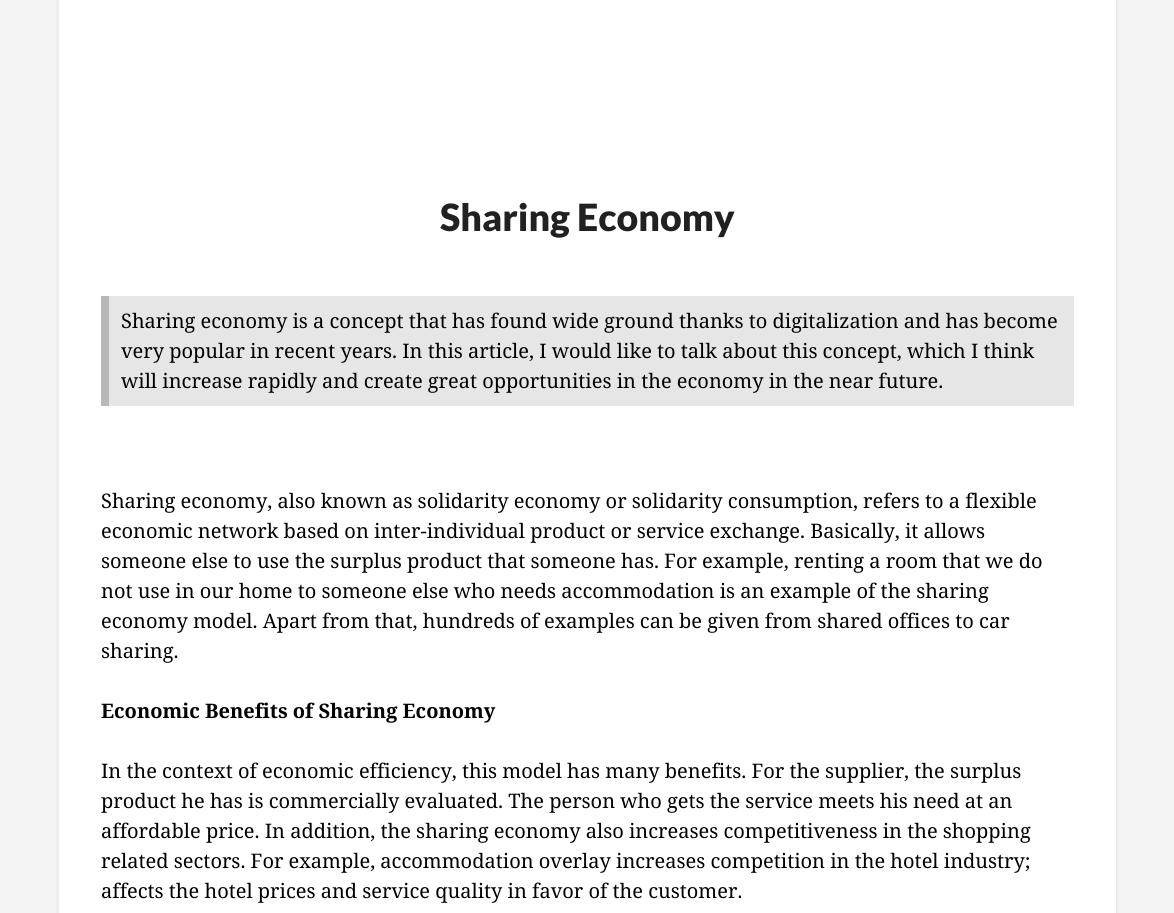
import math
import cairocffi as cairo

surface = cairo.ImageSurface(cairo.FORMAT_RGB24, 1174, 913)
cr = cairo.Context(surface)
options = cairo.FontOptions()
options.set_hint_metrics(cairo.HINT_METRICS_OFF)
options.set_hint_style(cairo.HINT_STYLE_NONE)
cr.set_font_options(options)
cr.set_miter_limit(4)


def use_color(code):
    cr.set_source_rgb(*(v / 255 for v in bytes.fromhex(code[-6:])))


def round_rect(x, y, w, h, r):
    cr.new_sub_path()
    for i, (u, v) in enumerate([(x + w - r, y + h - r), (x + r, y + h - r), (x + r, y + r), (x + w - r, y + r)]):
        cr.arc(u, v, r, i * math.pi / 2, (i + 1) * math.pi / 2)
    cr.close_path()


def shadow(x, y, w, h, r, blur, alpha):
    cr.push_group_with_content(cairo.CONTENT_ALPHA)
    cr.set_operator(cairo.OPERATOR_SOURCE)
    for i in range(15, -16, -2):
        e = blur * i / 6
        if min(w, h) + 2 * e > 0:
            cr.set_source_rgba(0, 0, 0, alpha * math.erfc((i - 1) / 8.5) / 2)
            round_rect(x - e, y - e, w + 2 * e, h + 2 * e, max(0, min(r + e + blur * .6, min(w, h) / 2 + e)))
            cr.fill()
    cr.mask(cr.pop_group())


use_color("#f4f4f4")
cr.paint()
use_color("#000000")
shadow(59, -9, 1057, 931, 1, 2.5, 0.1)
use_color("#ffffff")
cr.rectangle(59, 0, 1057, 913)
cr.fill()
cr.select_font_face("Lato Black")
cr.set_font_size(37.5)
use_color("#212121")
cr.move_to(440, 231)
cr.show_text("Sharing Economy")
use_color("#e6e6e6")
cr.rectangle(109, 296, 965, 110)
cr.fill()
use_color("#b8b8b8")
cr.rectangle(101, 296, 8, 110)
cr.fill()
cr.select_font_face("Noto Serif")
cr.set_font_size(20)
use_color("#000000")
cr.move_to(121, 328)
cr.show_text("Sharing economy is a concept that has found wide ground thanks to digitalization and has become")
cr.move_to(121, 358)
cr.show_text("very popular in recent years. In this article, I would like to talk about this concept, which I think")
cr.move_to(121, 388)
cr.show_text("will increase rapidly and create great opportunities in the economy in the near future.")
cr.move_to(101, 508)
cr.show_text("Sharing economy, also known as solidarity economy or solidarity consumption, refers to a flexible")
cr.move_to(101, 538)
cr.show_text("economic network based on inter-individual product or service exchange. Basically, it allows")
cr.move_to(101, 568)
cr.show_text("someone else to use the surplus product that someone has. For example, renting a room that we do")
cr.move_to(101, 598)
cr.show_text("not use in our home to someone else who needs accommodation is an example of the sharing")
cr.move_to(101, 628)
cr.show_text("economy model. Apart from that, hundreds of examples can be given from shared offices to car")
cr.move_to(101, 658)
cr.show_text("sharing.")
cr.select_font_face("Noto Serif", cairo.FONT_SLANT_NORMAL, cairo.FONT_WEIGHT_BOLD)
cr.move_to(101, 718)
cr.show_text("Economic Benefits of Sharing Economy")
cr.select_font_face("Noto Serif")
cr.move_to(101, 778)
cr.show_text("In the context of economic efficiency, this model has many benefits. For the supplier, the surplus")
cr.move_to(101, 808)
cr.show_text("product he has is commercially evaluated. The person who gets the service meets his need at an")
cr.move_to(101, 838)
cr.show_text("affordable price. In addition, the sharing economy also increases competitiveness in the shopping")
cr.move_to(101, 868)
cr.show_text("related sectors. For example, accommodation overlay increases competition in the hotel industry;")
cr.move_to(101, 898)
cr.show_text("affects the hotel prices and service quality in favor of the customer.")
surface.write_to_png("result.png")
